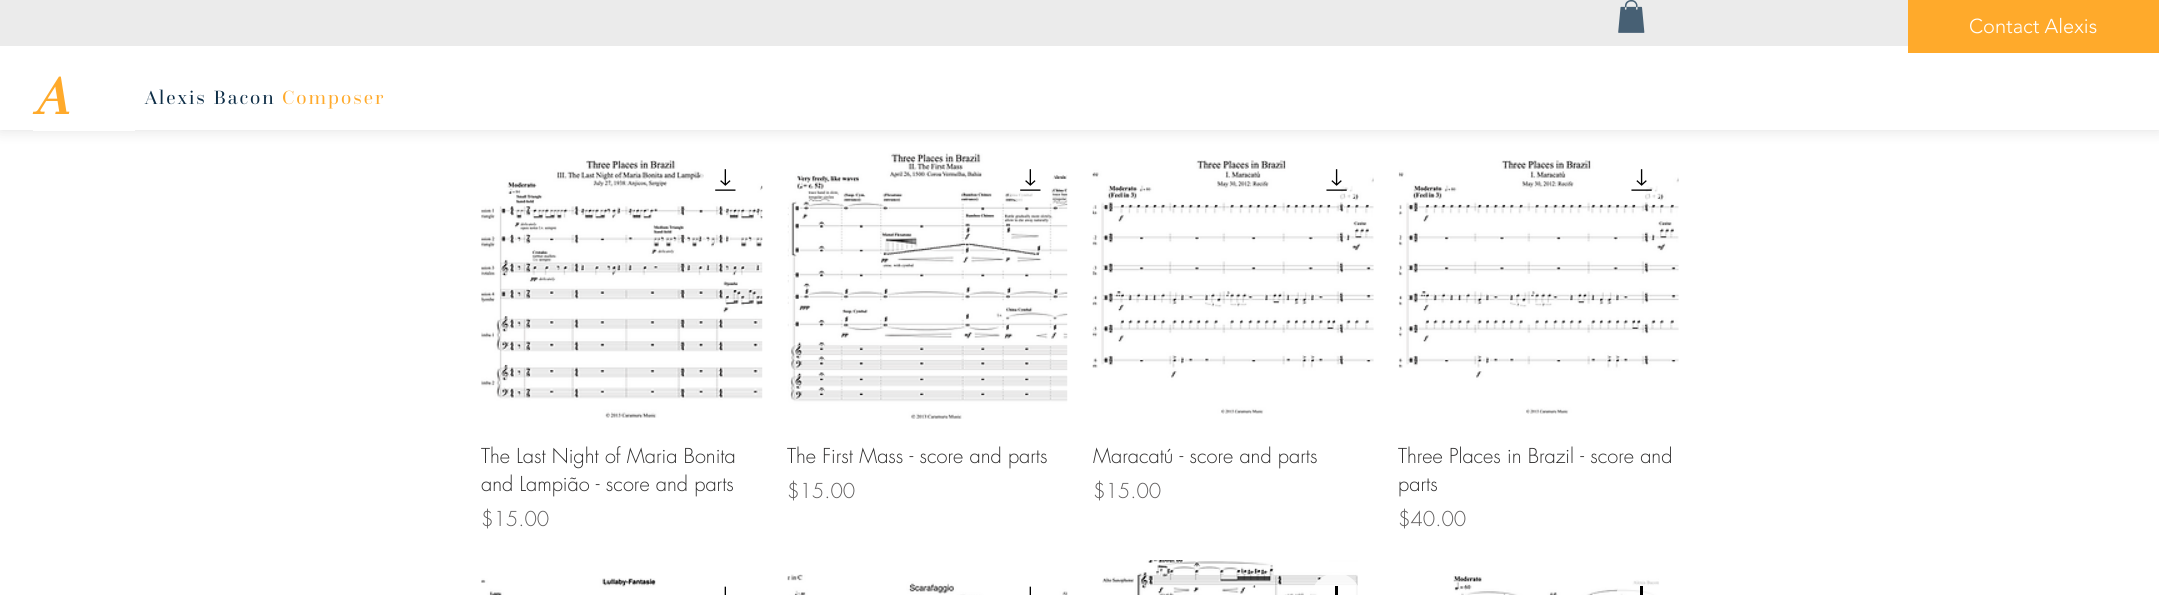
import math
import cairocffi as cairo

surface = cairo.ImageSurface(cairo.FORMAT_RGB24, 2159, 595)
cr = cairo.Context(surface)
options = cairo.FontOptions()
options.set_hint_metrics(cairo.HINT_METRICS_OFF)
options.set_hint_style(cairo.HINT_STYLE_NONE)
cr.set_font_options(options)
cr.set_miter_limit(4)


def use_color(code):
    cr.set_source_rgb(*(v / 255 for v in bytes.fromhex(code[-6:])))


def spaced_text(x, y, s, letter, word):
    cr.move_to(x, y)
    for ch in s:
        cr.show_text(ch)
        cr.rel_move_to(letter + word * (ch == ' '), 0)


def round_rect(x, y, w, h, r):
    cr.new_sub_path()
    for i, (u, v) in enumerate([(x + w - r, y + h - r), (x + r, y + h - r), (x + r, y + r), (x + w - r, y + r)]):
        cr.arc(u, v, r, i * math.pi / 2, (i + 1) * math.pi / 2)
    cr.close_path()


def shadow(x, y, w, h, r, blur, alpha):
    cr.push_group_with_content(cairo.CONTENT_ALPHA)
    cr.set_operator(cairo.OPERATOR_SOURCE)
    for i in range(15, -16, -2):
        e = blur * i / 6
        if min(w, h) + 2 * e > 0:
            cr.set_source_rgba(0, 0, 0, alpha * math.erfc((i - 1) / 8.5) / 2)
            round_rect(x - e, y - e, w + 2 * e, h + 2 * e, max(0, min(r + e + blur * .6, min(w, h) / 2 + e)))
            cr.fill()
    cr.mask(cr.pop_group())


def picture(path, x, y, w, h):
    cr.save()
    cr.set_source_surface(cairo.ImageSurface.create_from_png(path), x, y)
    cr.rectangle(x, y, w, h)
    cr.fill()
    cr.restore()


use_color("#ffffff")
cr.paint()
picture("img4.png", 787, 153, 281, 266)
cr.save()
cr.rectangle(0, 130, 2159, 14)
cr.clip()
use_color("#cccccc")
shadow(0, 0, 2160, 130, 0, 7.5, 0.61)
cr.restore()
use_color("#ebebeb")
cr.rectangle(0, 0, 1908, 46)
cr.fill()
picture("img1.png", 1618, 0, 27, 33)
use_color("#ffaa2b")
cr.rectangle(1908, 0, 251, 53)
cr.fill()
cr.select_font_face("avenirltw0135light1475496 Light")
cr.set_font_size(20)
use_color("#ffffff")
cr.move_to(1969, 33)
cr.show_text("Contact Alexis")
cr.select_font_face("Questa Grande", cairo.FONT_SLANT_ITALIC, cairo.FONT_WEIGHT_BOLD)
cr.set_font_size(54)
use_color("#ffaa2b")
cr.move_to(34, 114)
cr.show_text("A")
use_color("#ffffff")
cr.rectangle(33, 130, 102, 1)
cr.fill()
cr.select_font_face("Questa Grande")
cr.set_font_size(20)
use_color("#0e2e47")
spaced_text(145, 104, "Alexis Bacon", 2, 0)
use_color("#ffaa2b")
spaced_text(282, 104, "Composer", 2, 0)
picture("img3.png", 481, 160, 282, 258)
cr.set_source_rgba(1, 1, 1, 0.75)
cr.arc(725, 180, 25, 0, 2 * math.pi)
cr.fill()
picture("img2.png", 715, 169, 21, 22)
cr.select_font_face("futura Light")
use_color("#2f2e2e")
cr.move_to(481, 463)
cr.show_text("The Last Night of Maria Bonita")
cr.move_to(481, 491)
cr.show_text("and Lampião - score and parts")
use_color("#605e5e")
cr.move_to(481, 526)
cr.show_text("$15.00")
cr.set_source_rgba(1, 1, 1, 0.75)
cr.new_path()
cr.arc(1030, 180, 25, 0, 2 * math.pi)
cr.fill()
picture("img2.png", 1020, 169, 21, 22)
use_color("#2f2e2e")
cr.move_to(787, 463)
cr.show_text("The First Mass - score and parts")
use_color("#605e5e")
cr.move_to(787, 498)
cr.show_text("$15.00")
picture("img6.png", 1092, 160, 282, 254)
cr.set_source_rgba(1, 1, 1, 0.75)
cr.arc(1336, 180, 25, 0, 2 * math.pi)
cr.fill()
picture("img5.png", 1326, 169, 21, 22)
use_color("#2f2e2e")
cr.move_to(1093, 463)
cr.show_text("Maracatú - score and parts")
use_color("#605e5e")
cr.move_to(1093, 498)
cr.show_text("$15.00")
picture("img8.png", 1398, 160, 281, 254)
cr.set_source_rgba(1, 1, 1, 0.75)
cr.arc(1641, 180, 25, 0, 2 * math.pi)
cr.fill()
picture("img7.png", 1631, 169, 21, 22)
use_color("#2f2e2e")
cr.move_to(1398, 463)
cr.show_text("Three Places in Brazil - score and")
cr.move_to(1398, 491)
cr.show_text("parts")
use_color("#605e5e")
cr.move_to(1398, 526)
cr.show_text("$40.00")
picture("img9.png", 481, 578, 175, 17)
picture("img10.png", 724, 586, 2, 9)
picture("img11.png", 787, 574, 281, 21)
picture("img10.png", 1029, 586, 2, 9)
picture("img12.png", 1102, 560, 256, 35)
cr.set_source_rgba(1, 1, 1, 0.75)
round_rect(1311, 573, 50, 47, 25)
cr.fill()
use_color("#000000")
cr.rectangle(1335, 586, 3, 9)
cr.fill()
picture("img13.png", 1453, 574, 207, 21)
cr.set_source_rgba(1, 1, 1, 0.75)
round_rect(1616, 573, 50, 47, 25)
cr.fill()
use_color("#000000")
cr.rectangle(1640, 586, 3, 9)
cr.fill()
surface.write_to_png("result.png")
